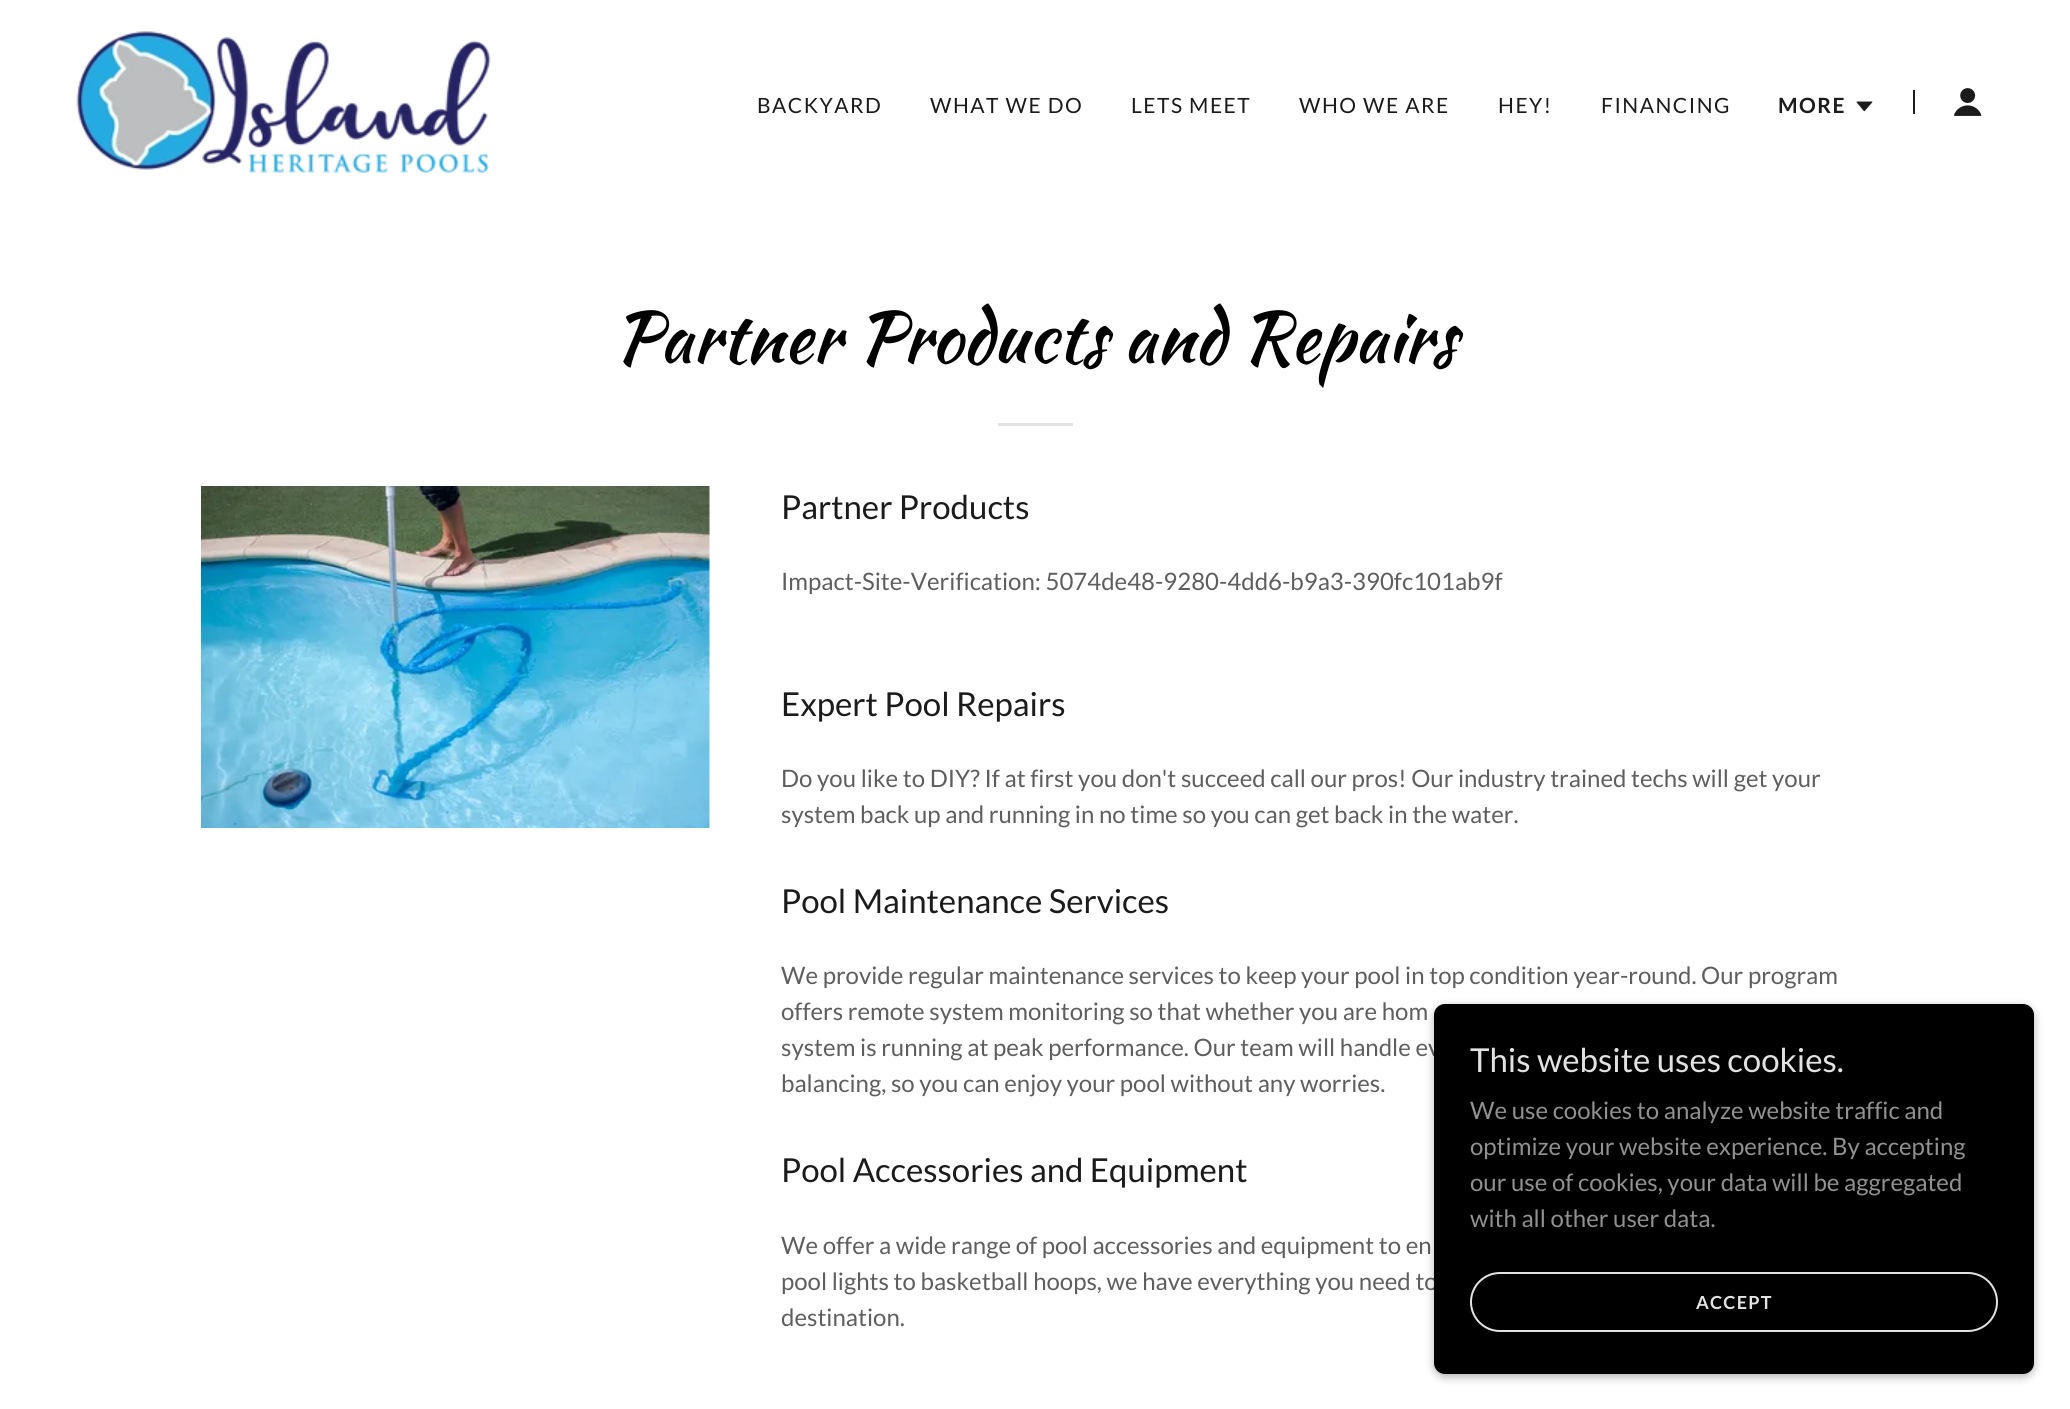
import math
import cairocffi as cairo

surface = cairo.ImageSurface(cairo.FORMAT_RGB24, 2070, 1409)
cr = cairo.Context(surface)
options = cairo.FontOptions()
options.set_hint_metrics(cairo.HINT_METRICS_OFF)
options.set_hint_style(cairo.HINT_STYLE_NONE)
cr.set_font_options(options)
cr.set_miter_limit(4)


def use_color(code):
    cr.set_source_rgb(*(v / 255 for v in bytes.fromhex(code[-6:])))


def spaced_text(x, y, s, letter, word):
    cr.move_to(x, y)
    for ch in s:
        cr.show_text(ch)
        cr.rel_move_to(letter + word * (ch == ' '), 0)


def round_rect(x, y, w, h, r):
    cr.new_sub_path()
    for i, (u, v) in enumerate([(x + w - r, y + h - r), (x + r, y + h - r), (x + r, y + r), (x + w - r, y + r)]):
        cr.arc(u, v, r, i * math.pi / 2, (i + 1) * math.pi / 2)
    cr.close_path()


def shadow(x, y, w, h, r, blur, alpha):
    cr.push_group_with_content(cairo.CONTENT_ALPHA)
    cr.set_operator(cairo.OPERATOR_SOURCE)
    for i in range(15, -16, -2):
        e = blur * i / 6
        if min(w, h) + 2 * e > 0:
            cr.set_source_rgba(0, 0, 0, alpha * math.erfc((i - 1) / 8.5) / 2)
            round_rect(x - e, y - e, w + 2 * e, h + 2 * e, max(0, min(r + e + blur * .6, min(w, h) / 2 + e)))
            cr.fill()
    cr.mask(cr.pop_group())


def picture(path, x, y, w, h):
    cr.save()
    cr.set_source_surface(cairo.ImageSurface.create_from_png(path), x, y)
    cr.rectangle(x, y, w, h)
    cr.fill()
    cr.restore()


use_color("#ffffff")
cr.paint()
picture("img1.png", 76, 31, 415, 142)
cr.select_font_face("Lato")
cr.set_font_size(21)
use_color("#1b1b1b")
spaced_text(757, 113, "BACKYARD", 1.5, 0)
spaced_text(930, 113, "WHAT WE DO", 1.5, 0)
spaced_text(1131, 113, "LETS MEET", 1.5, 0)
spaced_text(1299, 113, "WHO WE ARE", 1.5, 0)
spaced_text(1498, 113, "HEY!", 1.5, 0)
spaced_text(1601, 113, "FINANCING", 1.5, 0)
cr.select_font_face("Lato", cairo.FONT_SLANT_NORMAL, cairo.FONT_WEIGHT_BOLD)
spaced_text(1778, 113, "MORE", 1.5, 0)
picture("img2.png", 1856, 101, 17, 11)
cr.rectangle(1913, 90, 2, 24)
cr.fill()
picture("img3.png", 1954, 88, 28, 28)
cr.select_font_face("Kaushan Script")
cr.set_font_size(70.5)
use_color("#000000")
cr.move_to(614, 362)
cr.show_text("Partner Products and Repairs")
use_color("#e2e2e2")
cr.rectangle(998, 423, 75, 3)
cr.fill()
picture("img4.png", 201, 486, 509, 342)
cr.select_font_face("Lato")
cr.set_font_size(33)
use_color("#1b1b1b")
cr.move_to(781, 519)
cr.show_text("Partner Products")
cr.set_font_size(24)
use_color("#5e5e5e")
cr.move_to(781, 590)
cr.show_text("Impact-Site-Verification: 5074de48-9280-4dd6-b9a3-390fc101ab9f")
cr.set_font_size(33)
use_color("#1b1b1b")
cr.move_to(781, 716)
cr.show_text("Expert Pool Repairs")
cr.set_font_size(24)
use_color("#5e5e5e")
cr.move_to(781, 787)
cr.show_text("Do you like to DIY? If at first you don't succeed call our pros! Our industry trained techs will get your")
cr.move_to(781, 823)
cr.show_text("system back up and running in no time so you can get back in the water.")
cr.set_font_size(33)
use_color("#1b1b1b")
cr.move_to(781, 913)
cr.show_text("Pool Maintenance Services")
cr.set_font_size(24)
use_color("#5e5e5e")
cr.move_to(781, 984)
cr.show_text("We provide regular maintenance services to keep your pool in top condition year-round. Our program")
cr.move_to(781, 1020)
cr.show_text("offers remote system monitoring so that whether you are hom")
cr.move_to(781, 1056)
cr.show_text("system is running at peak performance. Our team will handle ev")
cr.move_to(781, 1092)
cr.show_text("balancing, so you can enjoy your pool without any worries.")
cr.set_font_size(33)
use_color("#1b1b1b")
cr.move_to(781, 1182)
cr.show_text("Pool Accessories and Equipment")
cr.set_font_size(24)
use_color("#5e5e5e")
cr.move_to(781, 1254)
cr.show_text("We offer a wide range of pool accessories and equipment to en")
cr.move_to(781, 1290)
cr.show_text("pool lights to basketball hoops, we have everything you need to")
cr.move_to(781, 1326)
cr.show_text("destination.")
use_color("#000000")
shadow(1434, 1007, 600, 370, 11, 4.5, 0.3)
use_color("#000000")
round_rect(1434, 1004, 600, 370, 11)
cr.fill()
cr.set_font_size(33)
use_color("#e2e2e2")
cr.move_to(1470, 1072)
cr.show_text("This website uses cookies.")
cr.set_font_size(24)
use_color("#919191")
cr.move_to(1470, 1119)
cr.show_text("We use cookies to analyze website traffic and")
cr.move_to(1470, 1155)
cr.show_text("optimize your website experience. By accepting")
cr.move_to(1470, 1191)
cr.show_text("our use of cookies, your data will be aggregated")
cr.move_to(1470, 1227)
cr.show_text("with all other user data.")
round_rect(1471, 1273, 526, 58, 29)
use_color("#e2e2e2")
cr.stroke()
cr.select_font_face("Lato", cairo.FONT_SLANT_NORMAL, cairo.FONT_WEIGHT_BOLD)
cr.set_font_size(18)
spaced_text(1696, 1309, "ACCEPT", 1.25, 0)
surface.write_to_png("result.png")
